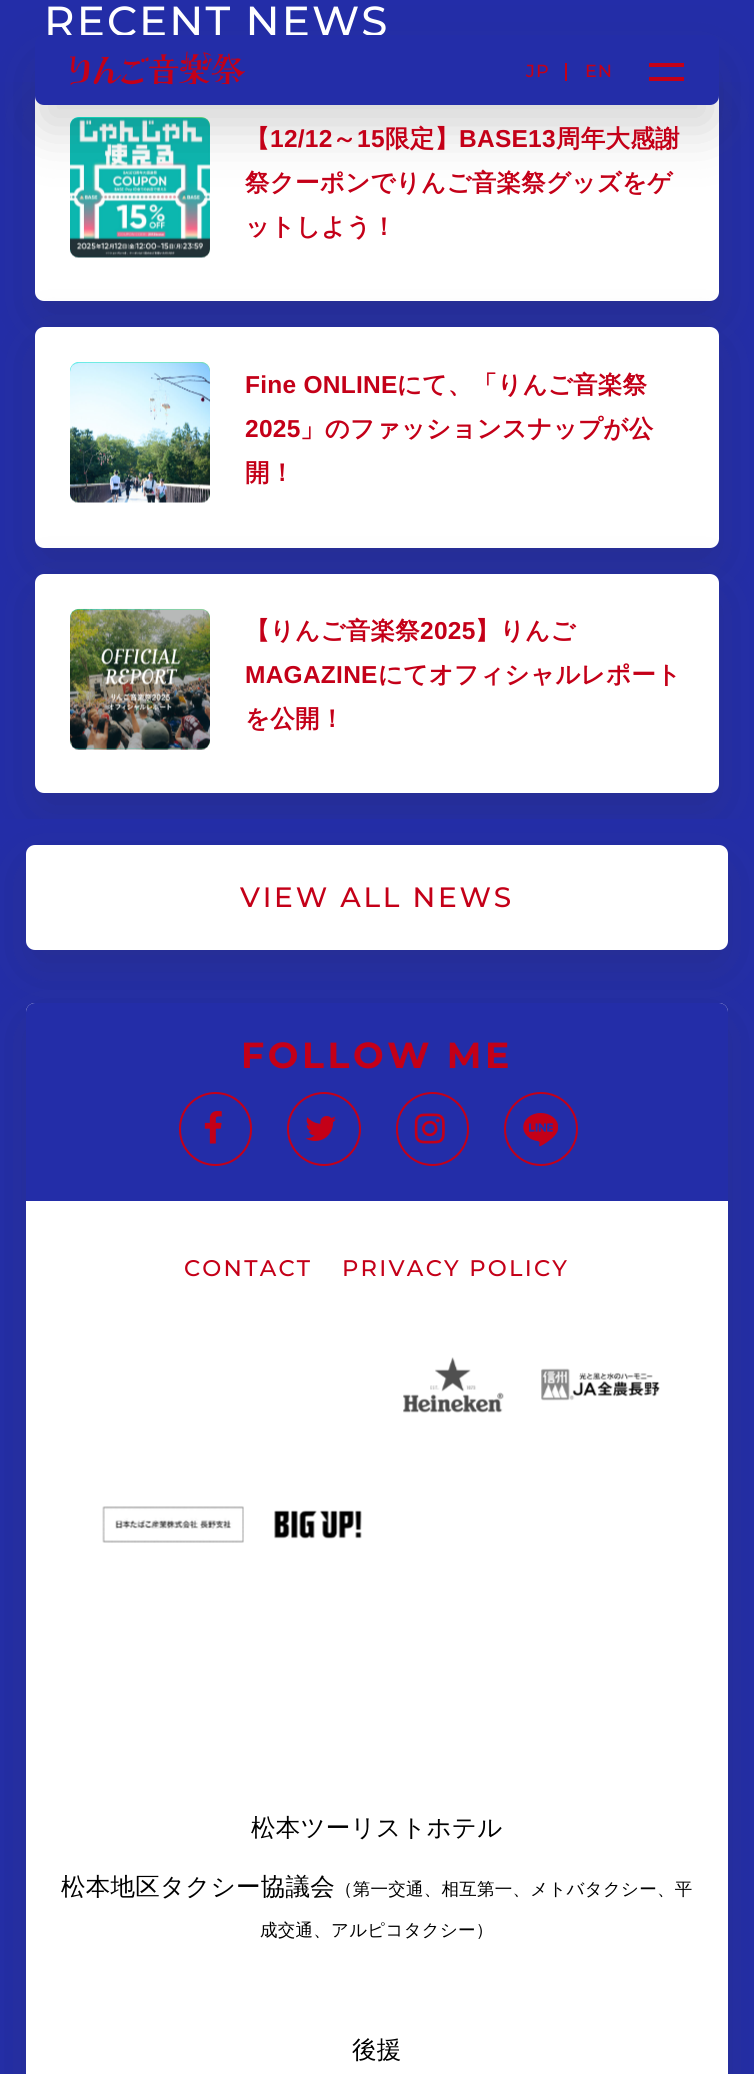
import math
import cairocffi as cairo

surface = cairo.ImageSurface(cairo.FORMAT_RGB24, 754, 2074)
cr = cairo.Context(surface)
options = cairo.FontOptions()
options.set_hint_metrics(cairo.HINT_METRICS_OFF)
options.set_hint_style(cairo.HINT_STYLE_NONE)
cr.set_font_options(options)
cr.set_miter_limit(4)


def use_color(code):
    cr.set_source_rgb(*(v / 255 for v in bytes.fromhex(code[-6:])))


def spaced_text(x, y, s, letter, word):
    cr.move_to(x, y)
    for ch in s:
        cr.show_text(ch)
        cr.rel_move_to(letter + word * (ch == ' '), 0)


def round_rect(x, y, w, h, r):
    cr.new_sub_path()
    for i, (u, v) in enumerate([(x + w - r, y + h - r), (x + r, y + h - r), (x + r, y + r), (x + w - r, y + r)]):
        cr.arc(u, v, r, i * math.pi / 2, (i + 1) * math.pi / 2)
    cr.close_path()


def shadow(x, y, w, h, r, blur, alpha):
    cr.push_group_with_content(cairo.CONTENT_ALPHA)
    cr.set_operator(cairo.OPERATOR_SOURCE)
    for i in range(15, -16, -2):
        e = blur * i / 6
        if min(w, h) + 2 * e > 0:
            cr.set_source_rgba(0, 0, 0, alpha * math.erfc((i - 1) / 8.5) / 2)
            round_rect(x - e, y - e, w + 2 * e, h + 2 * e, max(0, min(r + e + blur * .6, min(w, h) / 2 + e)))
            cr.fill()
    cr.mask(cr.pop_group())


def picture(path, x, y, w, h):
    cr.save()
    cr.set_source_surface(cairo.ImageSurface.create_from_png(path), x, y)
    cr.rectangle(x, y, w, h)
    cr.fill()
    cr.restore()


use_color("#232da8")
cr.paint()
cr.save()
cr.rectangle(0, 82, 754, 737)
cr.clip()
use_color("#333333")
shadow(35, 100, 684, 219, 9, 26, 0.2)
cr.restore()
use_color("#ffffff")
round_rect(35, 82, 684, 219, 9)
cr.fill()
gradient = cairo.LinearGradient(70, 467, 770, 467)
gradient.add_color_stop_rgba(0, 0, 0.902, 0.839, 1)
gradient.add_color_stop_rgba(0.49, 1, 0.945, 0, 1)
gradient.add_color_stop_rgba(1, 0, 0.902, 0.839, 1)
cr.set_source(gradient)
round_rect(70, 117, 140, 140, 9)
cr.fill()
picture("img2.png", 70, 118, 140, 140)
use_color("#333333")
shadow(35, 61, 684, 70, 9, 26, 0.2)
cr.select_font_face("Montserrat Medium")
cr.set_font_size(42)
use_color("#ffffff")
spaced_text(44, 36, "RECENT NEWS", 2.1, 0)
use_color("#232da8")
round_rect(35, 35, 684, 70, 9)
cr.fill()
picture("img1.png", 70, 51, 175, 34)
use_color("#c40018")
cr.rectangle(649, 63, 35, 4)
cr.fill()
cr.rectangle(649, 77, 35, 4)
cr.fill()
cr.select_font_face("WenQuanYi Zen Hei", cairo.FONT_SLANT_NORMAL, cairo.FONT_WEIGHT_BOLD)
cr.set_font_size(24.5)
spaced_text(245, 147, "【", 0.25, 0)
cr.select_font_face("Liberation Sans", cairo.FONT_SLANT_NORMAL, cairo.FONT_WEIGHT_BOLD)
spaced_text(270, 147, "12/12", 0.25, 0)
cr.select_font_face("WenQuanYi Zen Hei", cairo.FONT_SLANT_NORMAL, cairo.FONT_WEIGHT_BOLD)
spaced_text(332, 147, "～", 0.25, 0)
cr.select_font_face("Liberation Sans", cairo.FONT_SLANT_NORMAL, cairo.FONT_WEIGHT_BOLD)
spaced_text(357, 147, "15", 0.25, 0)
cr.select_font_face("WenQuanYi Zen Hei", cairo.FONT_SLANT_NORMAL, cairo.FONT_WEIGHT_BOLD)
spaced_text(385, 147, "限定】", 0.25, 0)
cr.select_font_face("Liberation Sans", cairo.FONT_SLANT_NORMAL, cairo.FONT_WEIGHT_BOLD)
spaced_text(459, 147, "BASE13", 0.25, 0)
cr.select_font_face("WenQuanYi Zen Hei", cairo.FONT_SLANT_NORMAL, cairo.FONT_WEIGHT_BOLD)
spaced_text(556, 147, "周年大感謝", 0.25, 0)
spaced_text(245, 191, "祭クーポンでりんご音楽祭グッズをゲ", 0.25, 0)
spaced_text(245, 235, "ットしよう！", 0.25, 0)
use_color("#333333")
shadow(35, 345, 684, 220, 9, 26, 0.2)
use_color("#ffffff")
round_rect(35, 327, 684, 221, 9)
cr.fill()
gradient = cairo.LinearGradient(70, 712, 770, 712)
gradient.add_color_stop_rgba(0, 0, 0.902, 0.839, 1)
gradient.add_color_stop_rgba(0.49, 1, 0.945, 0, 1)
gradient.add_color_stop_rgba(1, 0, 0.902, 0.839, 1)
cr.set_source(gradient)
round_rect(70, 362, 140, 140, 9)
cr.fill()
picture("img3.png", 70, 362, 140, 141)
cr.select_font_face("Liberation Sans", cairo.FONT_SLANT_NORMAL, cairo.FONT_WEIGHT_BOLD)
use_color("#c40018")
spaced_text(245, 393, "Fine ONLINE", 0.25, 0)
cr.select_font_face("WenQuanYi Zen Hei", cairo.FONT_SLANT_NORMAL, cairo.FONT_WEIGHT_BOLD)
spaced_text(397, 393, "にて、「りんご音楽祭", 0.25, 0)
cr.select_font_face("Liberation Sans", cairo.FONT_SLANT_NORMAL, cairo.FONT_WEIGHT_BOLD)
spaced_text(245, 437, "2025", 0.25, 0)
cr.select_font_face("WenQuanYi Zen Hei", cairo.FONT_SLANT_NORMAL, cairo.FONT_WEIGHT_BOLD)
spaced_text(300, 437, "」のファッションスナップが公", 0.25, 0)
spaced_text(245, 481, "開！", 0.25, 0)
use_color("#333333")
shadow(26, 863, 702, 105, 9, 26, 0.2)
use_color("#ffffff")
round_rect(26, 845, 702, 105, 9)
cr.fill()
cr.save()
cr.rectangle(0, 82, 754, 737)
cr.clip()
use_color("#333333")
shadow(35, 592, 684, 218, 9, 26, 0.2)
cr.restore()
round_rect(35, 574, 684, 219, 9)
cr.fill()
gradient = cairo.LinearGradient(70, 959, 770, 959)
gradient.add_color_stop_rgba(0, 0, 0.902, 0.839, 1)
gradient.add_color_stop_rgba(0.49, 1, 0.945, 0, 1)
gradient.add_color_stop_rgba(1, 0, 0.902, 0.839, 1)
cr.set_source(gradient)
round_rect(70, 609, 140, 140, 9)
cr.fill()
picture("img4.png", 70, 608, 140, 142)
use_color("#c40018")
spaced_text(245, 639, "【りんご音楽祭", 0.25, 0)
cr.select_font_face("Liberation Sans", cairo.FONT_SLANT_NORMAL, cairo.FONT_WEIGHT_BOLD)
spaced_text(420, 639, "2025", 0.25, 0)
cr.select_font_face("WenQuanYi Zen Hei", cairo.FONT_SLANT_NORMAL, cairo.FONT_WEIGHT_BOLD)
spaced_text(475, 639, "】りんご", 0.25, 0)
cr.select_font_face("Liberation Sans", cairo.FONT_SLANT_NORMAL, cairo.FONT_WEIGHT_BOLD)
spaced_text(245, 683, "MAGAZINE", 0.25, 0)
cr.select_font_face("WenQuanYi Zen Hei", cairo.FONT_SLANT_NORMAL, cairo.FONT_WEIGHT_BOLD)
spaced_text(378, 683, "にてオフィシャルレポート", 0.25, 0)
spaced_text(245, 727, "を公開！", 0.25, 0)
cr.select_font_face("Montserrat Medium")
cr.set_font_size(28)
spaced_text(240, 907, "VIEW ALL NEWS", 2.75, 0)
use_color("#333333")
shadow(26, 1020, 702, 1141, 9, 26, 0.2)
use_color("#ffffff")
round_rect(26, 1003, 702, 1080, 9)
cr.fill()
use_color("#232da8")
cr.new_path()
cr.move_to(35, 1003)
cr.line_to(719, 1003)
cr.curve_to(724, 1003, 728, 1007, 728, 1012)
cr.line_to(728, 1201)
cr.line_to(26, 1201)
cr.line_to(26, 1012)
cr.curve_to(26, 1007, 30, 1003, 35, 1003)
cr.close_path()
cr.fill()
cr.select_font_face("Montserrat", cairo.FONT_SLANT_NORMAL, cairo.FONT_WEIGHT_BOLD)
cr.set_font_size(36.25)
use_color("#c40018")
spaced_text(241, 1068, "FOLLOW ME", 3.6, 0)
round_rect(180, 1093, 71, 72, 35.5)
cr.stroke()
picture("img5.png", 204, 1111, 18, 33)
cr.arc(324, 1129, 36, 0, 2 * math.pi)
cr.stroke()
picture("img6.png", 305, 1116, 31, 25)
round_rect(397, 1093, 71, 72, 35.5)
cr.stroke()
picture("img7.png", 414, 1113, 31, 31)
cr.arc(541, 1129, 36, 0, 2 * math.pi)
cr.stroke()
picture("img8.png", 523, 1113, 35, 34)
cr.select_font_face("Montserrat Medium")
cr.set_font_size(22.6)
spaced_text(184, 1276, "CONTACT", 2.25, 0)
spaced_text(342, 1276, "PRIVACY POLICY", 2.25, 0)
picture("img9.png", 403, 1357, 101, 56)
picture("img10.png", 541, 1368, 119, 33)
picture("img11.png", 102, 1506, 142, 37)
picture("img12.png", 274, 1510, 88, 29)
cr.select_font_face("WenQuanYi Zen Hei Medium")
cr.set_font_size(24.5)
use_color("#000000")
spaced_text(251, 1836, "松本ツーリストホテル", 0.25, 0)
spaced_text(61, 1895, "松本地区タクシー協議会", 0.25, 0)
cr.set_font_size(17.5)
spaced_text(335, 1895, "（第一交通、相互第一、メトバタクシー、平", 0.25, 0)
spaced_text(260, 1936, "成交通、アルピコタクシー）", 0.25, 0)
cr.set_font_size(24.5)
spaced_text(352, 2058, "後援", 0.25, 0)
cr.select_font_face("Montserrat Medium")
cr.set_font_size(17.5)
use_color("#c40018")
spaced_text(526, 77, "JP", 1, 0)
cr.rectangle(565, 63, 2, 18)
cr.fill()
spaced_text(585, 77, "EN", 1, 0)
surface.write_to_png("result.png")
